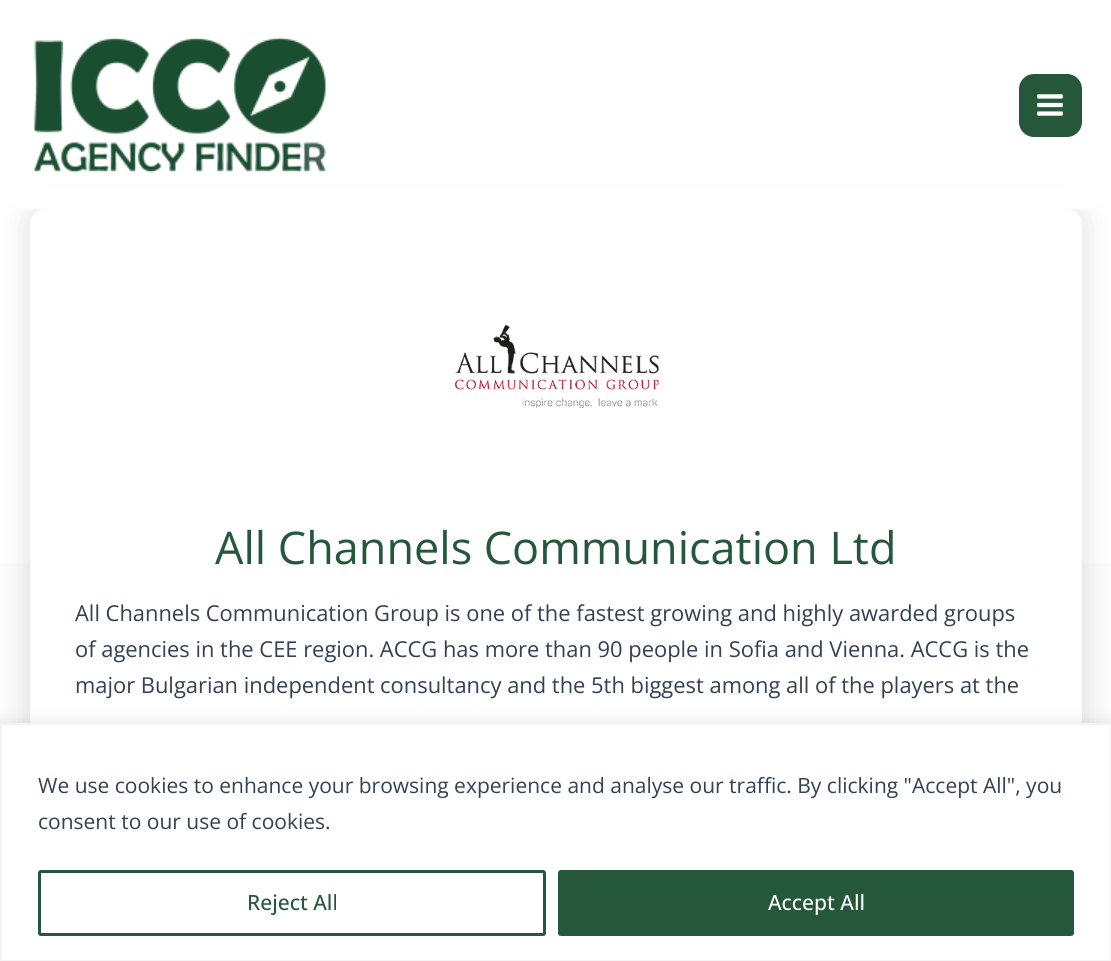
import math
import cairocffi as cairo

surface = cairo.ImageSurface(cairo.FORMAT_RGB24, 1111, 961)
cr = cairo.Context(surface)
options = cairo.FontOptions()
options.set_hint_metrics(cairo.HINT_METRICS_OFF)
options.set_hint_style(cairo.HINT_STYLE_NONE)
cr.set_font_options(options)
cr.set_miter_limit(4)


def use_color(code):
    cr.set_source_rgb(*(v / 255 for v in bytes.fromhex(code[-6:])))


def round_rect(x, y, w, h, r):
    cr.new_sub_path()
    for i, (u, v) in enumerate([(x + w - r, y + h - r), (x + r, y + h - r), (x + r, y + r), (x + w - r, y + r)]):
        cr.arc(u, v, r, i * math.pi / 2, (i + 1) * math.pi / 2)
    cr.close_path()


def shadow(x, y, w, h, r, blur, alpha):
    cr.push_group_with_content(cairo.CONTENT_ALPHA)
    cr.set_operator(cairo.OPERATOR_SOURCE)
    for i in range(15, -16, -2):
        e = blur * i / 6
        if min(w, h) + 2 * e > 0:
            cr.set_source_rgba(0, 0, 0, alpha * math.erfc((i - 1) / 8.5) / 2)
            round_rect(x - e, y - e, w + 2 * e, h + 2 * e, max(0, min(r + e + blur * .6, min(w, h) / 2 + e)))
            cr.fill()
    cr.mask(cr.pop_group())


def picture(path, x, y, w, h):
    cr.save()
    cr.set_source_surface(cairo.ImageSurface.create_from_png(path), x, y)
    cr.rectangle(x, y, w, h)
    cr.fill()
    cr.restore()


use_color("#ffffff")
cr.paint()
gradient = cairo.LinearGradient(556, 0, 556, 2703)
gradient.add_color_stop_rgba(0, 1, 1, 1, 1)
gradient.add_color_stop_rgba(1, 0.953, 0.953, 0.953, 1)
cr.set_source(gradient)
cr.rectangle(0, 563, 1111, 160)
cr.fill()
use_color("#000000")
shadow(30, 209, 1052, 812, 15, 15, 0.14)
use_color("#ffffff")
cr.rectangle(16, 187, 1080, 22)
cr.fill()
picture("img1.png", 34, 37, 292, 136)
use_color("#25573b")
round_rect(1019, 74, 63, 63, 15)
cr.fill()
picture("img2.png", 1037, 94, 26, 22)
use_color("#ffffff")
round_rect(30, 209, 1052, 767, 15)
cr.fill()
picture("img3.png", 455, 324, 204, 84)
cr.select_font_face("Open Sans")
cr.set_font_size(45)
use_color("#25573b")
cr.move_to(215, 564)
cr.show_text("All Channels Communication Ltd")
cr.set_font_size(21.9)
use_color("#334155")
cr.move_to(75, 621)
cr.show_text("All Channels Communication Group is one of the fastest growing and highly awarded groups")
cr.move_to(75, 657)
cr.show_text("of agencies in the CEE region. ACCG has more than 90 people in Sofia and Vienna. ACCG is the")
cr.move_to(75, 693)
cr.show_text("major Bulgarian independent consultancy and the 5th biggest among all of the players at the")
use_color("#acabab")
shadow(0, 722, 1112, 238, 0, 7.5, 0.3)
use_color("#ffffff")
cr.rectangle(1, 724, 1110, 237)
cr.fill_preserve()
use_color("#f4f4f4")
cr.stroke()
cr.set_font_size(21)
use_color("#334155")
cr.move_to(38, 793)
cr.show_text("We use cookies to enhance your browsing experience and analyse our traffic. By clicking \"Accept All\", you")
cr.move_to(38, 829)
cr.show_text("consent to our use of cookies.")
round_rect(39.5, 871.5, 505, 63, 1.5)
use_color("#25573b")
cr.set_line_width(3)
cr.stroke()
cr.select_font_face("Open Sans Medium")
cr.move_to(247, 910)
cr.show_text("Reject All")
round_rect(559.5, 871.5, 513, 63, 1.5)
cr.fill_preserve()
cr.stroke()
use_color("#ffffff")
cr.move_to(768, 910)
cr.show_text("Accept All")
surface.write_to_png("result.png")
